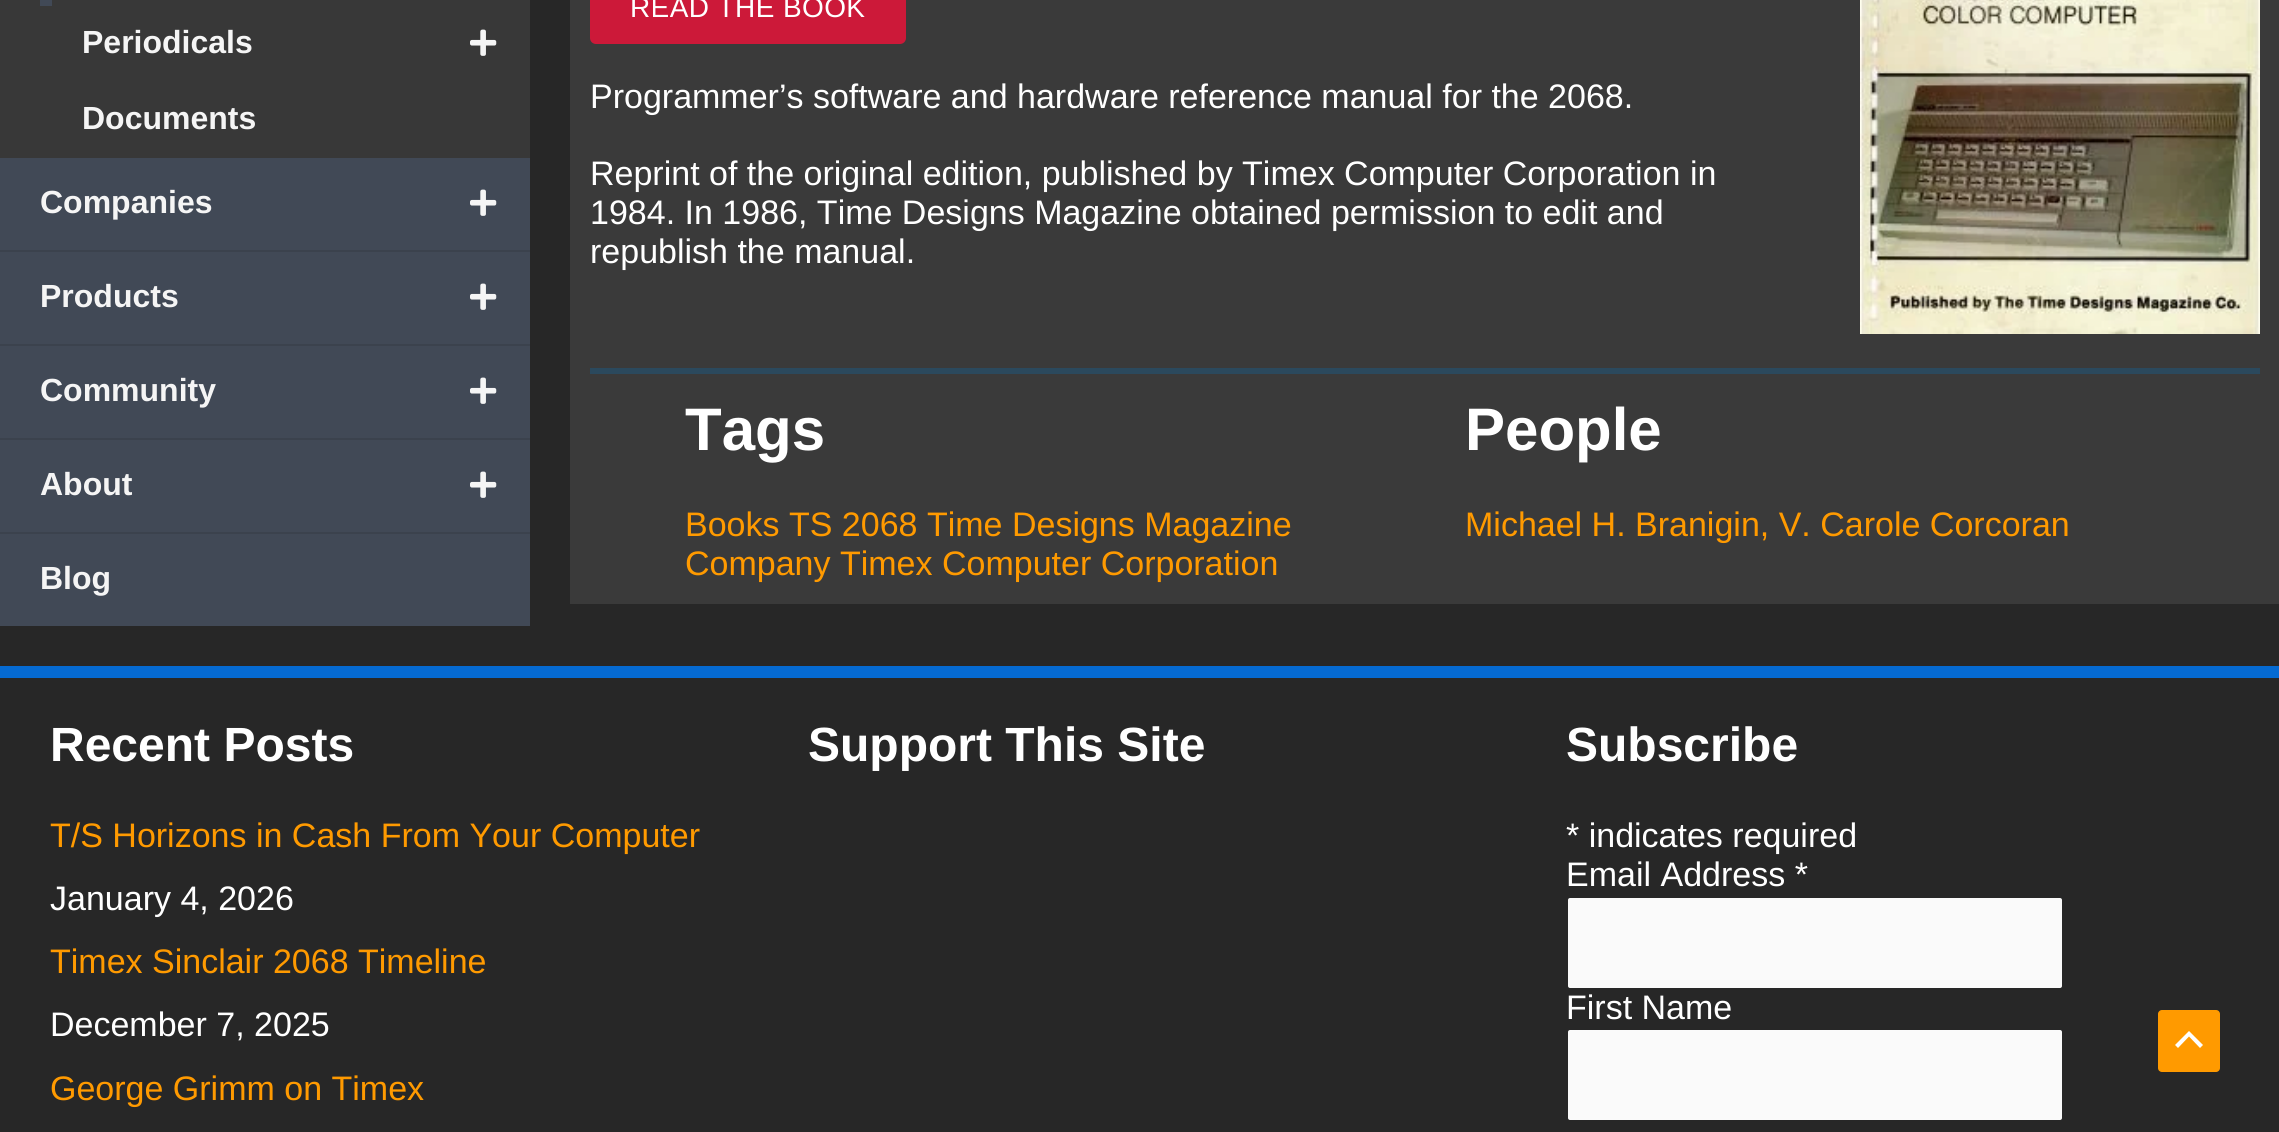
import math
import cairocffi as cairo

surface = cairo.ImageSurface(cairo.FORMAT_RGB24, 2279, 1132)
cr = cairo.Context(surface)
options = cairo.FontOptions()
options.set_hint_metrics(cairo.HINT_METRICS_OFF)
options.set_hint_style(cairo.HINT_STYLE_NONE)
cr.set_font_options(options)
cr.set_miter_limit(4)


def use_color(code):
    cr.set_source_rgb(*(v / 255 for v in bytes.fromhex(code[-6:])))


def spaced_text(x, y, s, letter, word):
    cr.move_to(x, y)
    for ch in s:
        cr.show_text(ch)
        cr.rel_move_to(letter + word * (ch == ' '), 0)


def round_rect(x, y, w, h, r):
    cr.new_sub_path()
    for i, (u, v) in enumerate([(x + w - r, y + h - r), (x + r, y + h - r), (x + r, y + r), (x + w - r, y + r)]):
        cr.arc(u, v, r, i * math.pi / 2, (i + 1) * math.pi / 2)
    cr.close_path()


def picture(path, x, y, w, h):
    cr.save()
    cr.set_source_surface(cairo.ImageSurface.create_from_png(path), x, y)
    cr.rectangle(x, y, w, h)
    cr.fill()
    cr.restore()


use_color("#272727")
cr.paint()
use_color("#383838")
cr.rectangle(0, 0, 530, 158)
cr.fill()
use_color("#414956")
cr.rectangle(40, 0, 12, 6)
cr.fill()
cr.select_font_face("Liberation Sans", cairo.FONT_SLANT_NORMAL, cairo.FONT_WEIGHT_BOLD)
cr.set_font_size(32)
use_color("#f5f5f5")
cr.move_to(82, 53)
cr.show_text("Periodicals")
picture("img1.png", 470, 29, 27, 27)
cr.move_to(82, 129)
cr.show_text("Documents")
use_color("#414956")
cr.rectangle(0, 158, 530, 92)
cr.fill()
use_color("#3b424d")
cr.rectangle(0, 250, 530, 2)
cr.fill()
use_color("#f5f5f5")
cr.move_to(40, 213)
cr.show_text("Companies")
picture("img2.png", 470, 189, 27, 27)
use_color("#414956")
cr.rectangle(0, 252, 530, 92)
cr.fill()
use_color("#3b424d")
cr.rectangle(0, 344, 530, 2)
cr.fill()
use_color("#f5f5f5")
cr.move_to(40, 307)
cr.show_text("Products")
picture("img2.png", 470, 283, 27, 27)
use_color("#414956")
cr.rectangle(0, 346, 530, 92)
cr.fill()
use_color("#3b424d")
cr.rectangle(0, 438, 530, 2)
cr.fill()
use_color("#f5f5f5")
cr.move_to(40, 401)
cr.show_text("Community")
picture("img2.png", 470, 377, 27, 27)
use_color("#414956")
cr.rectangle(0, 440, 530, 92)
cr.fill()
use_color("#3b424d")
cr.rectangle(0, 532, 530, 2)
cr.fill()
use_color("#f5f5f5")
cr.move_to(40, 495)
cr.show_text("About")
picture("img2.png", 470, 471, 27, 27)
use_color("#414956")
cr.rectangle(0, 534, 530, 92)
cr.fill()
use_color("#f5f5f5")
cr.move_to(40, 589)
cr.show_text("Blog")
use_color("#3a3a3a")
cr.rectangle(570, 0, 1709, 604)
cr.fill()
use_color("#cc1939")
round_rect(590, -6, 316, 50, 6)
cr.fill()
cr.select_font_face("Liberation Sans")
cr.set_font_size(28)
use_color("#ffffff")
spaced_text(630, 17, "READ THE BOOK", 0.4, 0)
picture("img3.png", 1860, 0, 400, 334)
cr.set_font_size(34)
cr.move_to(590, 108)
cr.show_text("Programmer’s software and hardware reference manual for the 2068.")
cr.move_to(590, 185)
cr.show_text("Reprint of the original edition, published by Timex Computer Corporation in")
cr.move_to(590, 224)
cr.show_text("1984. In 1986, Time Designs Magazine obtained permission to edit and")
cr.move_to(590, 263)
cr.show_text("republish the manual.")
use_color("#2b495d")
cr.rectangle(590, 368, 1670, 6)
cr.fill()
cr.select_font_face("Liberation Sans", cairo.FONT_SLANT_NORMAL, cairo.FONT_WEIGHT_BOLD)
cr.set_font_size(60)
use_color("#ffffff")
cr.move_to(685, 450)
cr.show_text("Tags")
cr.select_font_face("Liberation Sans")
cr.set_font_size(34)
use_color("#ff9a00")
cr.move_to(685, 536)
cr.show_text("Books TS 2068 Time Designs Magazine")
cr.move_to(685, 575)
cr.show_text("Company Timex Computer Corporation")
cr.select_font_face("Liberation Sans", cairo.FONT_SLANT_NORMAL, cairo.FONT_WEIGHT_BOLD)
cr.set_font_size(60)
use_color("#ffffff")
cr.move_to(1465, 450)
cr.show_text("People")
cr.select_font_face("Liberation Sans")
cr.set_font_size(34)
use_color("#ff9a00")
cr.move_to(1465, 536)
cr.show_text("Michael H. Branigin, V. Carole Corcoran")
use_color("#056ad2")
cr.rectangle(0, 666, 2279, 12)
cr.fill()
cr.select_font_face("Liberation Sans", cairo.FONT_SLANT_NORMAL, cairo.FONT_WEIGHT_BOLD)
cr.set_font_size(48)
use_color("#ffffff")
cr.move_to(50, 761)
cr.show_text("Recent Posts")
cr.select_font_face("Liberation Sans")
cr.set_font_size(34)
use_color("#ff9a00")
cr.move_to(50, 847)
cr.show_text("T/S Horizons in Cash From Your Computer")
use_color("#ffffff")
cr.move_to(50, 910)
cr.show_text("January 4, 2026")
use_color("#ff9a00")
cr.move_to(50, 973)
cr.show_text("Timex Sinclair 2068 Timeline")
use_color("#ffffff")
cr.move_to(50, 1036)
cr.show_text("December 7, 2025")
use_color("#ff9a00")
cr.move_to(50, 1100)
cr.show_text("George Grimm on Timex")
cr.select_font_face("Liberation Sans", cairo.FONT_SLANT_NORMAL, cairo.FONT_WEIGHT_BOLD)
cr.set_font_size(48)
use_color("#ffffff")
cr.move_to(808, 761)
cr.show_text("Support This Site")
cr.move_to(1566, 761)
cr.show_text("Subscribe")
cr.select_font_face("Liberation Sans")
cr.set_font_size(34)
cr.move_to(1566, 847)
cr.show_text("* indicates required")
cr.move_to(1566, 886)
cr.show_text("Email Address *")
use_color("#fafafa")
round_rect(1567, 897, 496, 92, 3)
cr.fill_preserve()
use_color("#272727")
cr.stroke()
use_color("#ffffff")
cr.move_to(1566, 1019)
cr.show_text("First Name")
use_color("#fafafa")
round_rect(1567, 1029, 496, 92, 3)
cr.fill_preserve()
use_color("#272727")
cr.stroke()
use_color("#ff9a00")
round_rect(2158, 1010, 62, 62, 4)
cr.fill()
use_color("#ffffff")
cr.new_path()
cr.move_to(2203, 1045)
cr.line_to(2189, 1031)
cr.line_to(2175, 1045)
cr.line_to(2178, 1048)
cr.line_to(2189, 1036.5)
cr.line_to(2200, 1048)
cr.close_path()
cr.fill()
surface.write_to_png("result.png")
